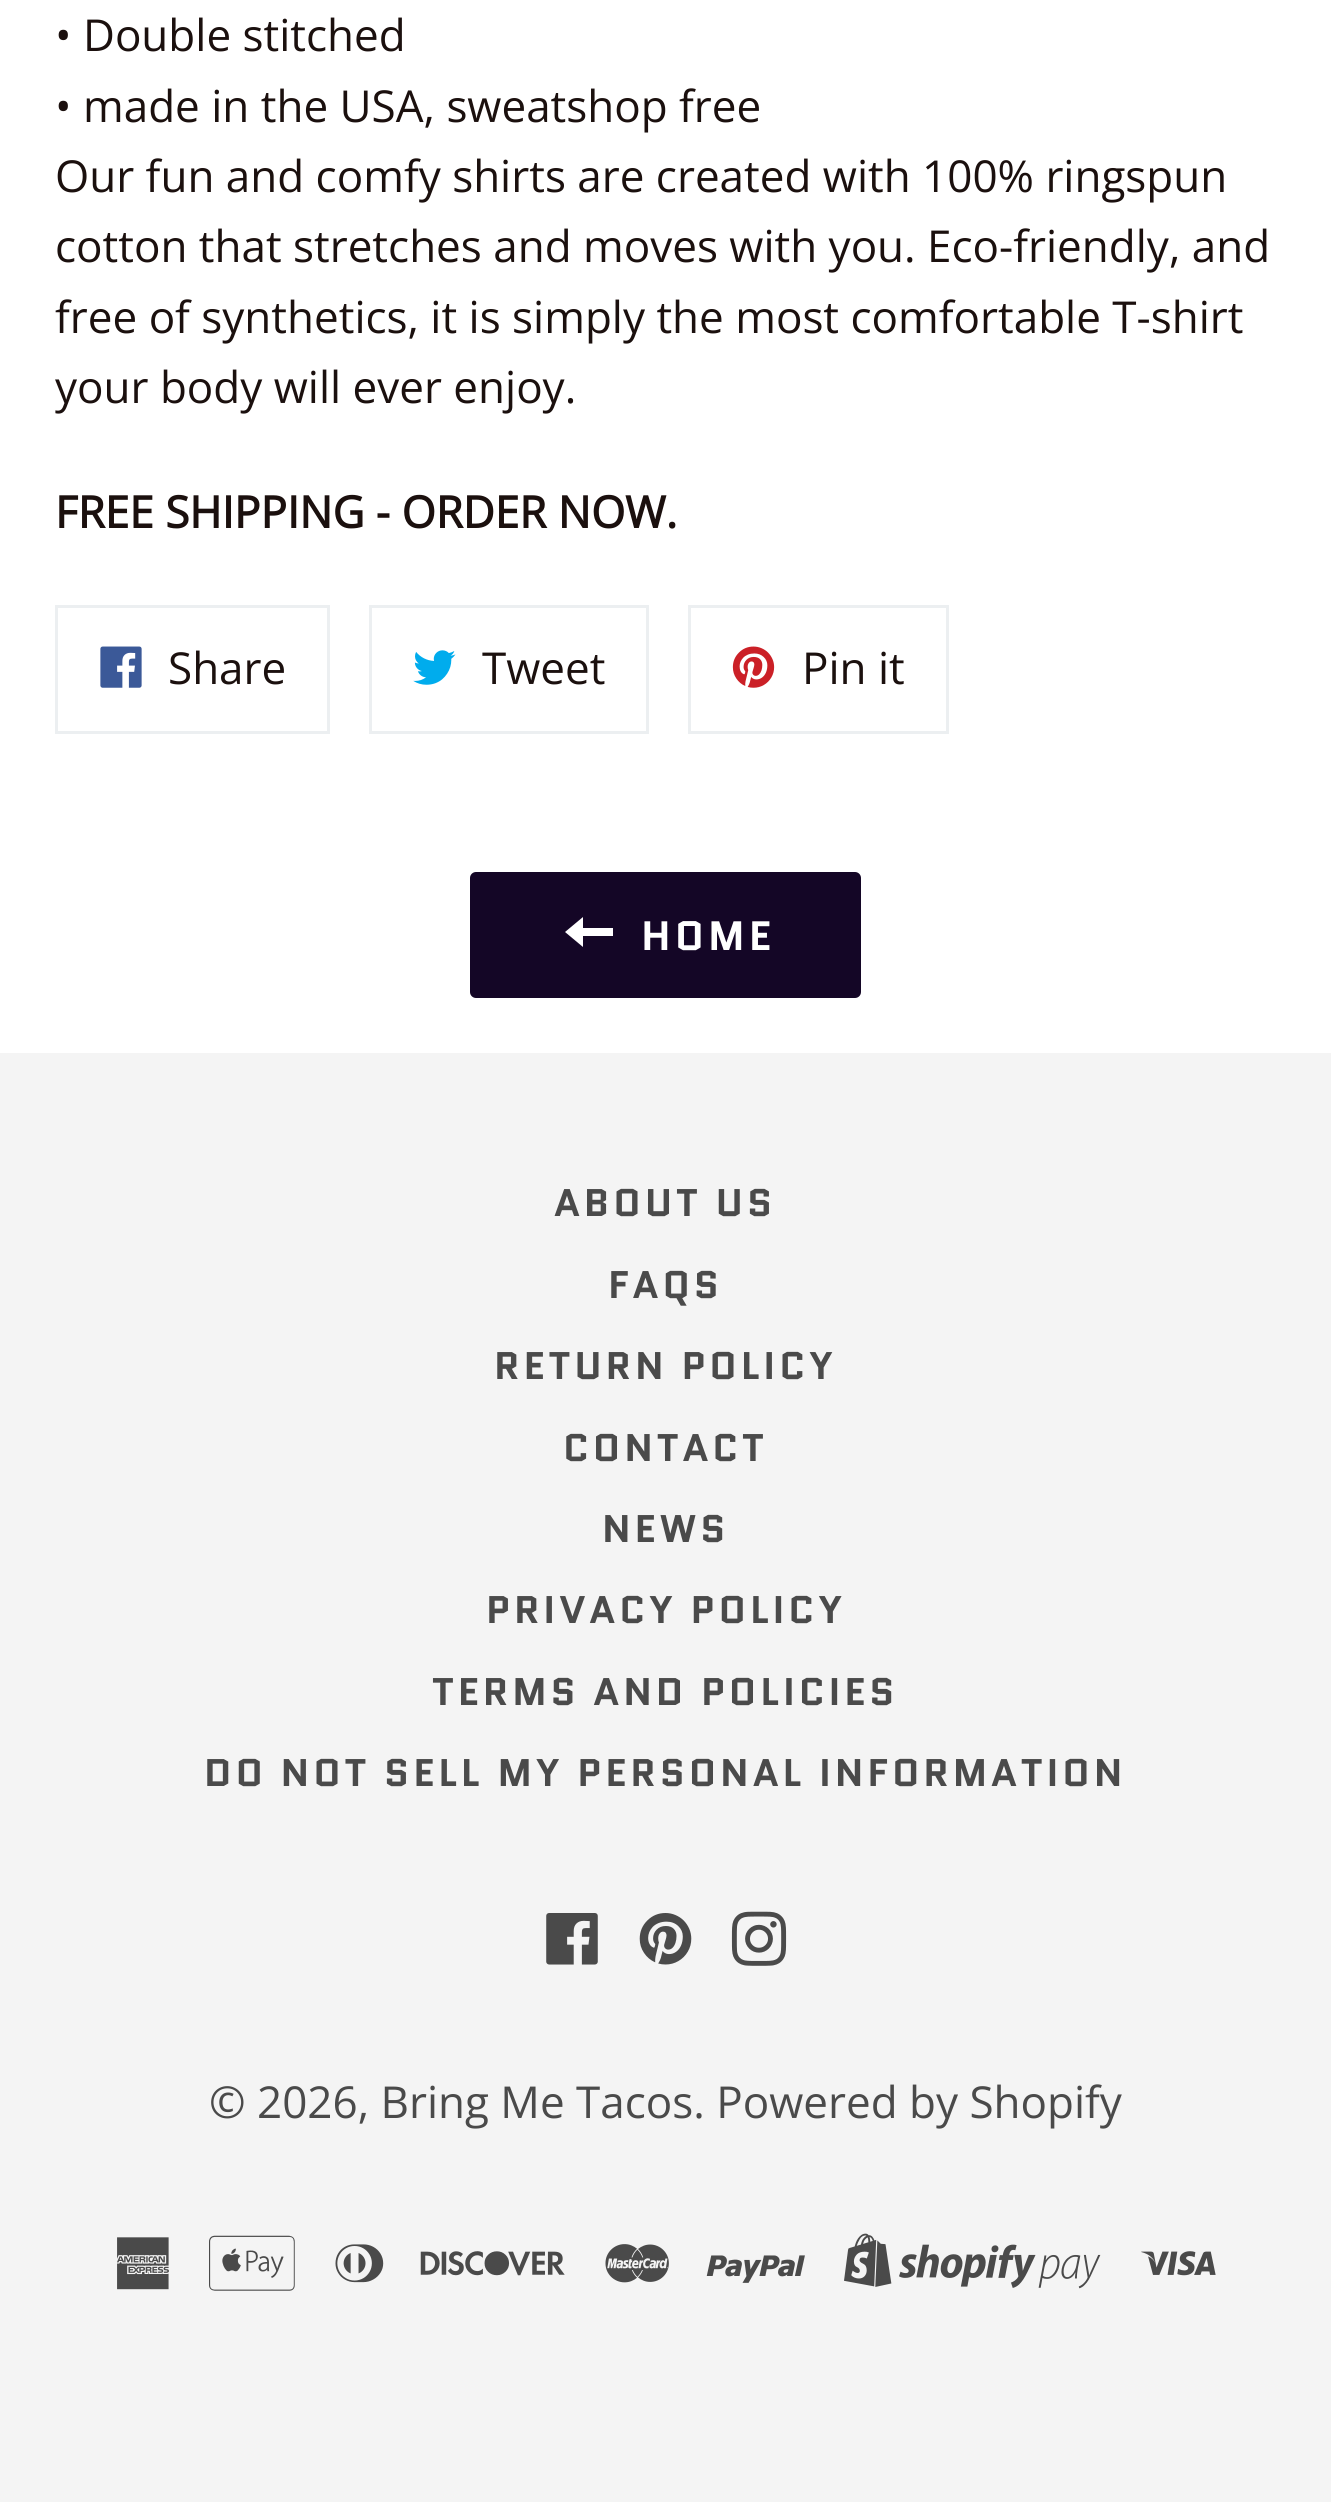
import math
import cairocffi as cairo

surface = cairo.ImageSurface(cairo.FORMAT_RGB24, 1331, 2502)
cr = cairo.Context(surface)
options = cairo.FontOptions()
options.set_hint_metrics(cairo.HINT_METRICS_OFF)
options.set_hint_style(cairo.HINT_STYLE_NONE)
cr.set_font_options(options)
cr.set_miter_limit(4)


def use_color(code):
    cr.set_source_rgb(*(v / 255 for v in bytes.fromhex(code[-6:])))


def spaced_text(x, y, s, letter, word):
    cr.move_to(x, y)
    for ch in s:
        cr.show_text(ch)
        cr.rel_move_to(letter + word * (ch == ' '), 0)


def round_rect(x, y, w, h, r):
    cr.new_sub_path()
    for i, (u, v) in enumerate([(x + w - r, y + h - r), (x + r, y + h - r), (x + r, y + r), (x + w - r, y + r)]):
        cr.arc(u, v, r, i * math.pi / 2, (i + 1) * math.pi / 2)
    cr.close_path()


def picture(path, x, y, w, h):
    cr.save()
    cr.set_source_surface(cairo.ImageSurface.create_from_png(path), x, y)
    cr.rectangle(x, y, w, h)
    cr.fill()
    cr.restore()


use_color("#ffffff")
cr.paint()
cr.select_font_face("Open Sans")
cr.set_font_size(44)
use_color("#1b100e")
cr.move_to(55, 51)
cr.show_text("• Double stitched")
cr.move_to(55, 122)
cr.show_text("• made in the USA, sweatshop free")
cr.move_to(55, 192)
cr.show_text("Our fun and comfy shirts are created with 100% ringspun")
cr.move_to(55, 262)
cr.show_text("cotton that stretches and moves with you. Eco-friendly, and")
cr.move_to(55, 333)
cr.show_text("free of synthetics, it is simply the most comfortable T-shirt")
cr.move_to(55, 403)
cr.show_text("your body will ever enjoy.")
cr.select_font_face("Open Sans", cairo.FONT_SLANT_NORMAL, cairo.FONT_WEIGHT_BOLD)
cr.move_to(55, 528)
cr.show_text("FREE SHIPPING - ORDER NOW.")
cr.rectangle(56.5, 606.5, 272, 126)
use_color("#eceff1")
cr.set_line_width(3)
cr.stroke()
picture("img1.png", 100, 646, 42, 42)
cr.select_font_face("Open Sans")
use_color("#1b100e")
cr.move_to(168, 684)
cr.show_text("Share")
cr.rectangle(370.5, 606.5, 277, 126)
use_color("#eceff1")
cr.stroke()
picture("img2.png", 413, 650, 43, 35)
use_color("#1b100e")
cr.move_to(482, 684)
cr.show_text("Tweet")
cr.rectangle(689.5, 606.5, 258, 126)
use_color("#eceff1")
cr.stroke()
picture("img3.png", 732, 646, 43, 42)
use_color("#1b100e")
cr.move_to(802, 684)
cr.show_text("Pin it")
use_color("#140626")
round_rect(470, 872, 391, 126, 6)
cr.fill()
use_color("#ffffff")
cr.new_path()
cr.move_to(583, 928)
cr.line_to(583, 917)
cr.line_to(565, 932)
cr.line_to(583, 947)
cr.line_to(583, 936)
cr.line_to(613, 936)
cr.line_to(613, 928)
cr.close_path()
cr.fill()
cr.select_font_face("Quantico", cairo.FONT_SLANT_NORMAL, cairo.FONT_WEIGHT_BOLD)
cr.set_font_size(41)
spaced_text(641, 950, "HOME", 4, 0)
use_color("#f4f4f4")
cr.rectangle(0, 1053, 1331, 1449)
cr.fill()
cr.set_font_size(38.5)
use_color("#4a4a4a")
spaced_text(554, 1216, "ABOUT US", 3.85, 0)
spaced_text(608, 1298, "FAQS", 3.85, 0)
spaced_text(494, 1379, "RETURN POLICY", 3.85, 0)
spaced_text(563, 1461, "CONTACT", 3.85, 0)
spaced_text(602, 1542, "NEWS", 3.85, 0)
spaced_text(486, 1623, "PRIVACY POLICY", 3.85, 0)
spaced_text(432, 1705, "TERMS AND POLICIES", 3.85, 0)
spaced_text(204, 1786, "DO NOT SELL MY PERSONAL INFORMATION", 3.85, 0)
picture("img4.png", 546, 1913, 52, 52)
picture("img5.png", 639, 1913, 53, 52)
picture("img6.png", 731, 1911, 56, 55)
cr.select_font_face("Open Sans")
cr.set_font_size(44)
cr.move_to(209, 2118)
cr.show_text("© 2026, Bring Me Tacos. Powered by Shopify")
picture("img7.png", 117, 2237, 52, 53)
picture("img8.png", 209, 2235, 86, 56)
picture("img9.png", 335, 2244, 49, 39)
picture("img10.png", 420, 2251, 145, 25)
picture("img11.png", 605, 2244, 64, 39)
picture("img12.png", 706, 2255, 99, 28)
picture("img13.png", 844, 2233, 257, 56)
picture("img14.png", 1141, 2251, 75, 25)
surface.write_to_png("result.png")
